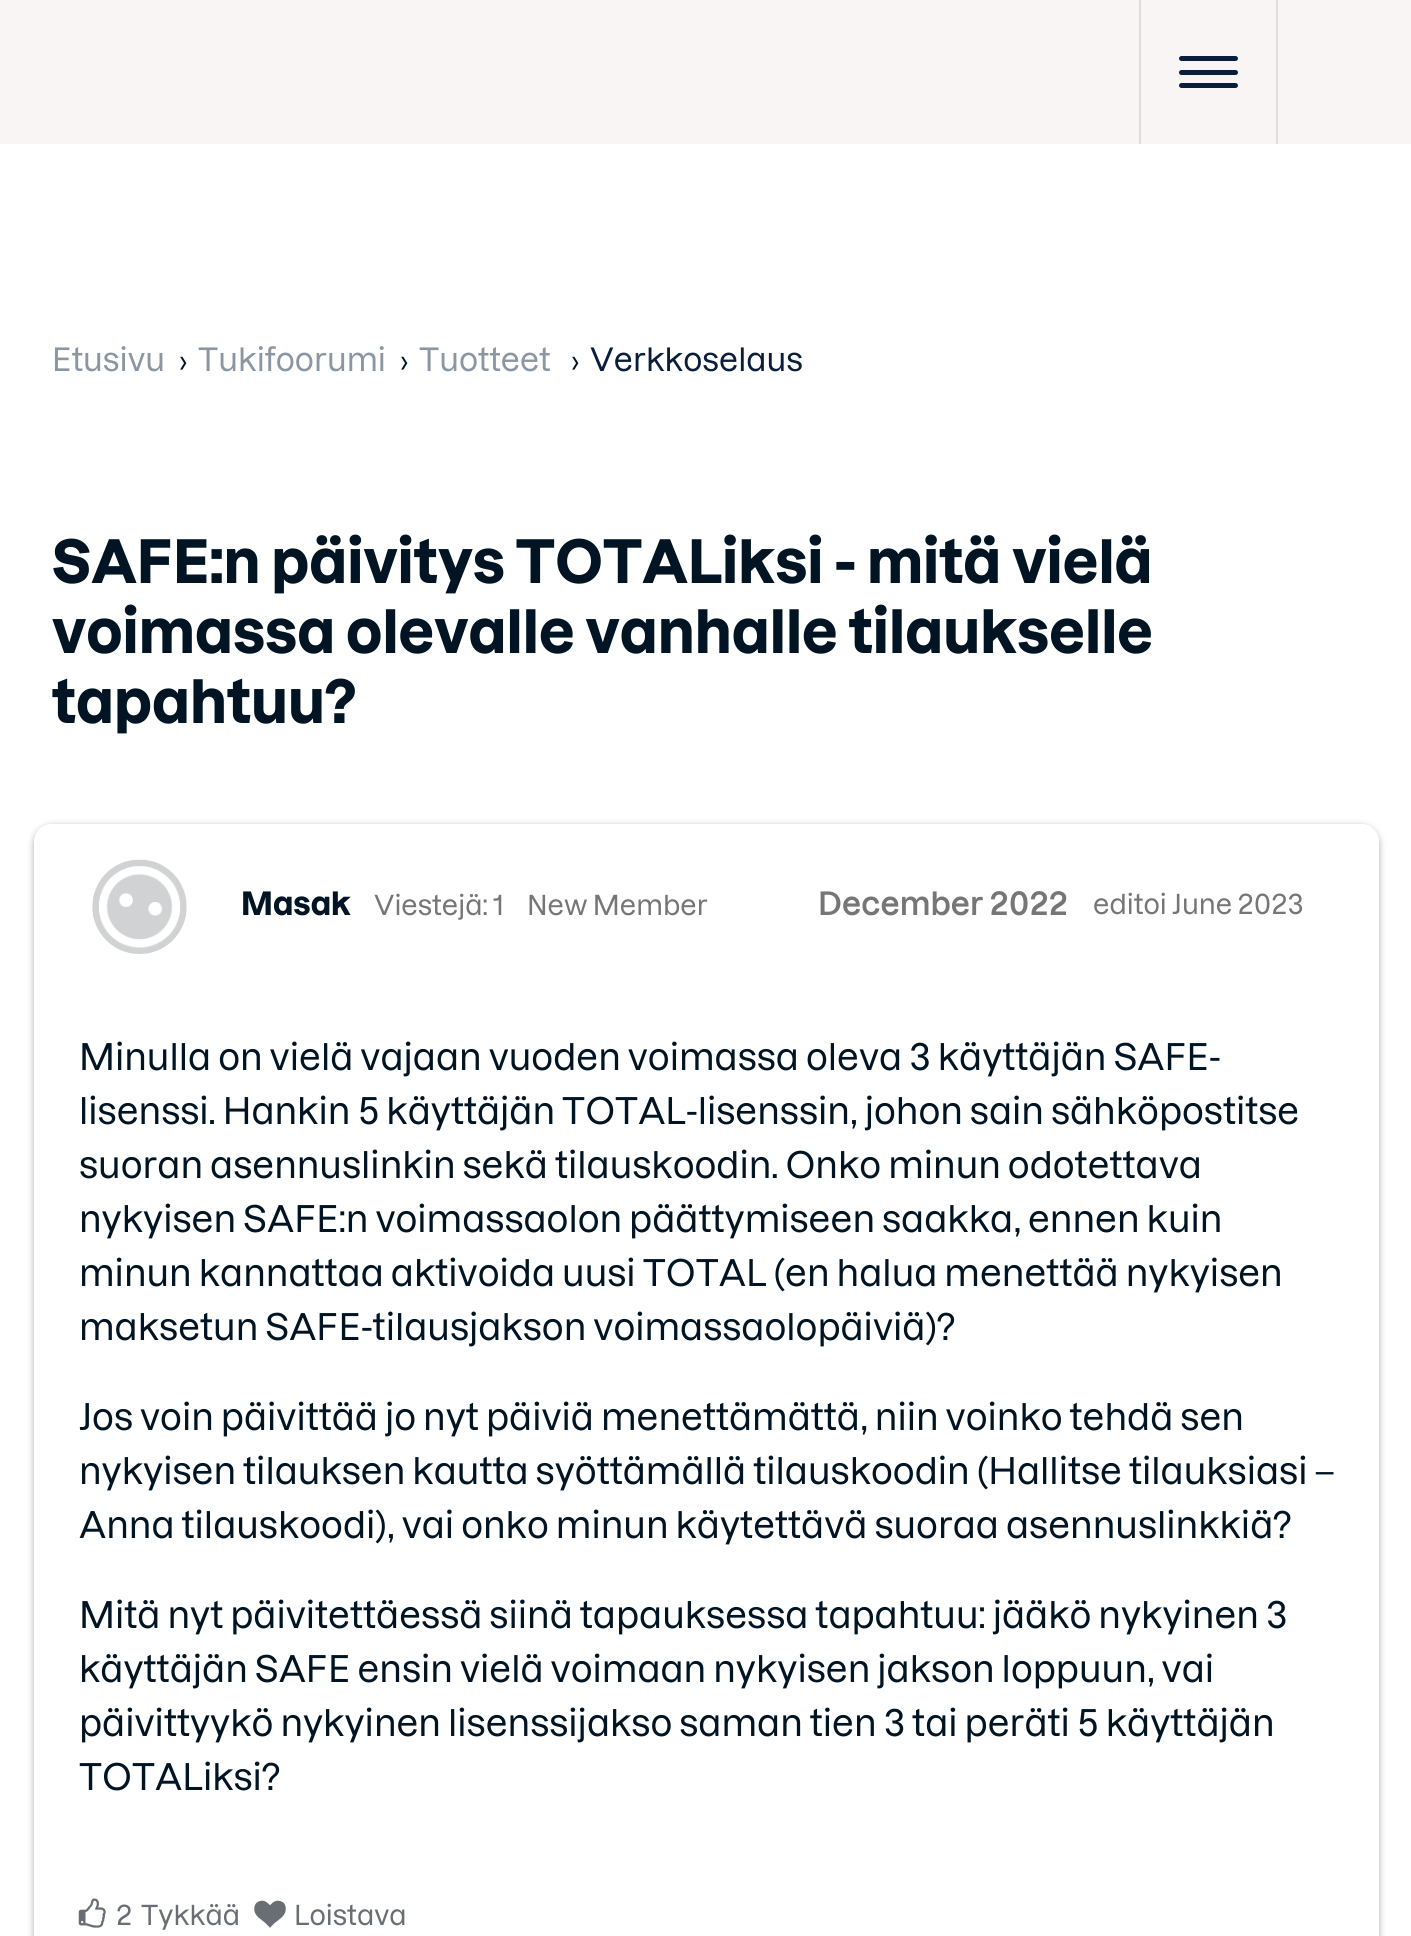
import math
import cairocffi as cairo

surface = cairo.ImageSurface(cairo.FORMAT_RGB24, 1411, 1936)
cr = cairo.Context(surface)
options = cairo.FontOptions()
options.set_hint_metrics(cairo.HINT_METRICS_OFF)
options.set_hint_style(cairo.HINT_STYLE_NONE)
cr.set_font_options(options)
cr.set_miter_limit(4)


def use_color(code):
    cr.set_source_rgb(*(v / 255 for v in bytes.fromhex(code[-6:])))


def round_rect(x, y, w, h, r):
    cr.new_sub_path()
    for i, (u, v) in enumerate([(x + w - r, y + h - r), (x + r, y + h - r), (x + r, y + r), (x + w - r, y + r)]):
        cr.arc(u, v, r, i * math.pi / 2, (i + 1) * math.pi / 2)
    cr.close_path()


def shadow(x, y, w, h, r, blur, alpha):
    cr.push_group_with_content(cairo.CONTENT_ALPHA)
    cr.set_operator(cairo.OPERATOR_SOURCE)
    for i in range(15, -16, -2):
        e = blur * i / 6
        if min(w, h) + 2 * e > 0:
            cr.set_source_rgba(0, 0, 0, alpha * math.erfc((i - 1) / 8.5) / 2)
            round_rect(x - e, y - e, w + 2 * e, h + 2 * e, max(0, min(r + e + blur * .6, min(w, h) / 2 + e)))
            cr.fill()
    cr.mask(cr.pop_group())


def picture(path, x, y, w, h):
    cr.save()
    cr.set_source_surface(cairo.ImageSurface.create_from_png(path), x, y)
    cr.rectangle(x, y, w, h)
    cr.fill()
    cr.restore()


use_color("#ffffff")
cr.paint()
use_color("#faf5f5")
cr.rectangle(0, 0, 1411, 144)
cr.fill()
use_color("#dedede")
cr.rectangle(1276, 0, 2, 144)
cr.fill()
cr.rectangle(1139, 0, 2, 144)
cr.fill()
use_color("#0a1e3c")
round_rect(1179, 70, 59, 5, 2.5)
cr.fill()
round_rect(1179, 56, 59, 5, 2.5)
cr.fill()
round_rect(1179, 83, 59, 5, 2.5)
cr.fill()
cr.select_font_face("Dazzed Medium")
cr.set_font_size(31.5)
use_color("#8c96a0")
cr.move_to(52, 371)
cr.show_text("Etusivu")
cr.set_font_size(27)
use_color("#001423")
cr.move_to(179, 371)
cr.show_text("›")
cr.set_font_size(31.5)
use_color("#8c96a0")
cr.move_to(198, 371)
cr.show_text("Tukifoorumi")
cr.set_font_size(27)
use_color("#001423")
cr.move_to(400, 371)
cr.show_text("›")
cr.set_font_size(31.5)
use_color("#8c96a0")
cr.move_to(419, 371)
cr.show_text("Tuotteet")
cr.set_font_size(27)
use_color("#001423")
cr.move_to(571, 371)
cr.show_text("›")
cr.set_font_size(31.5)
use_color("#0a1e3c")
cr.move_to(590, 371)
cr.show_text("Verkkoselaus")
cr.select_font_face("Dazzed", cairo.FONT_SLANT_NORMAL, cairo.FONT_WEIGHT_BOLD)
cr.set_font_size(58.5)
use_color("#001423")
cr.move_to(52, 583)
cr.show_text("SAFE:n päivitys TOTALiksi - mitä vielä")
cr.move_to(52, 653)
cr.show_text("voimassa olevalle vanhalle tilaukselle")
cr.move_to(52, 723)
cr.show_text("tapahtuu?")
cr.save()
cr.set_fill_rule(cairo.FILL_RULE_EVEN_ODD)
cr.new_path()
cr.move_to(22, 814)
cr.line_to(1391, 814)
cr.line_to(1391, 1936)
cr.line_to(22, 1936)
cr.close_path()
cr.move_to(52, 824)
cr.line_to(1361, 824)
cr.curve_to(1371, 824, 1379, 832, 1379, 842)
cr.line_to(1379, 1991)
cr.curve_to(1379, 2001, 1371, 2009, 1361, 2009)
cr.line_to(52, 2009)
cr.curve_to(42, 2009, 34, 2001, 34, 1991)
cr.line_to(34, 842)
cr.curve_to(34, 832, 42, 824, 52, 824)
cr.close_path()
cr.clip()
use_color("#acacac")
shadow(34, 826, 1345, 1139, 18, 3.5, 1)
cr.restore()
picture("img1.png", 92, 859, 95, 95)
cr.set_font_size(31.5)
cr.move_to(241, 915)
cr.show_text("Masak")
cr.select_font_face("Dazzed Medium")
cr.set_font_size(27)
use_color("#767676")
cr.move_to(374, 915)
cr.show_text("Viestejä: 1")
cr.move_to(527, 915)
cr.show_text("New Member")
cr.select_font_face("Dazzed SemiBold")
cr.set_font_size(31.5)
cr.move_to(818, 915)
cr.show_text("December 2022")
cr.select_font_face("Dazzed Medium")
cr.set_font_size(27)
cr.move_to(1093, 914)
cr.show_text("editoi June 2023")
cr.set_font_size(36)
use_color("#001423")
cr.move_to(79, 1070)
cr.show_text("Minulla on vielä vajaan vuoden voimassa oleva 3 käyttäjän SAFE-")
cr.move_to(79, 1124)
cr.show_text("lisenssi. Hankin 5 käyttäjän TOTAL-lisenssin, johon sain sähköpostitse")
cr.move_to(79, 1178)
cr.show_text("suoran asennuslinkin sekä tilauskoodin. Onko minun odotettava")
cr.move_to(79, 1232)
cr.show_text("nykyisen SAFE:n voimassaolon päättymiseen saakka, ennen kuin")
cr.move_to(79, 1286)
cr.show_text("minun kannattaa aktivoida uusi TOTAL (en halua menettää nykyisen")
cr.move_to(79, 1340)
cr.show_text("maksetun SAFE-tilausjakson voimassaolopäiviä)?")
cr.move_to(79, 1430)
cr.show_text("Jos voin päivittää jo nyt päiviä menettämättä, niin voinko tehdä sen")
cr.move_to(79, 1484)
cr.show_text("nykyisen tilauksen kautta syöttämällä tilauskoodin (Hallitse tilauksiasi –")
cr.move_to(79, 1538)
cr.show_text("Anna tilauskoodi), vai onko minun käytettävä suoraa asennuslinkkiä?")
cr.move_to(79, 1628)
cr.show_text("Mitä nyt päivitettäessä siinä tapauksessa tapahtuu: jääkö nykyinen 3")
cr.move_to(79, 1682)
cr.show_text("käyttäjän SAFE ensin vielä voimaan nykyisen jakson loppuun, vai")
cr.move_to(79, 1736)
cr.show_text("päivittyykö nykyinen lisenssijakso saman tien 3 tai peräti 5 käyttäjän")
cr.move_to(79, 1790)
cr.show_text("TOTALiksi?")
picture("img2.png", 78, 1898, 28, 30)
cr.set_font_size(27)
use_color("#696e75")
cr.move_to(116, 1925)
cr.show_text("2")
cr.move_to(141, 1925)
cr.show_text("Tykkää")
picture("img3.png", 254, 1900, 32, 28)
cr.move_to(294, 1925)
cr.show_text("Loistava")
surface.write_to_png("result.png")
